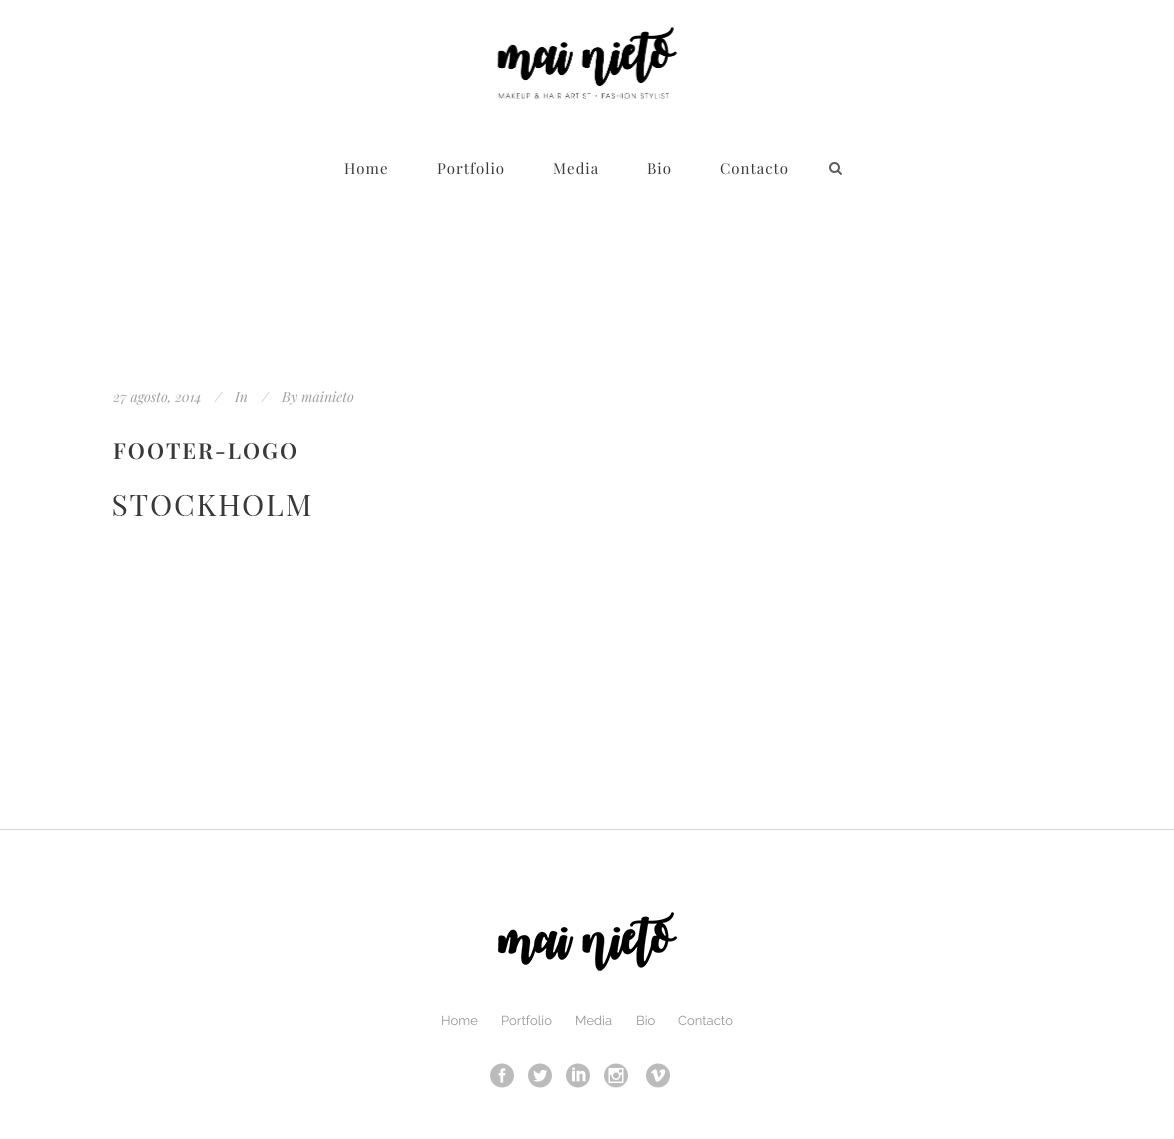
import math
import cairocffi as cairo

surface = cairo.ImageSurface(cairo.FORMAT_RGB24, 1174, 1139)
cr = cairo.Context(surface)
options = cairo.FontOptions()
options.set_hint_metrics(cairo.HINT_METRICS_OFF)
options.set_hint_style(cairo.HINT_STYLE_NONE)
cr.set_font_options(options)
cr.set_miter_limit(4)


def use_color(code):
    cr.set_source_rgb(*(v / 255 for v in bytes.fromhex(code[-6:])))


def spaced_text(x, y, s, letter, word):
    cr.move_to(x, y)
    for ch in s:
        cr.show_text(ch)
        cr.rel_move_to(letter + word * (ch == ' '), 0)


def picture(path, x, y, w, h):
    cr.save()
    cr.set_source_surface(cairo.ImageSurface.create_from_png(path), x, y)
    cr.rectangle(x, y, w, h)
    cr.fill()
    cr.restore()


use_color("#ffffff")
cr.paint()
picture("img1.png", 497, 27, 180, 72)
cr.select_font_face("Playfair Display")
cr.set_font_size(15)
use_color("#393939")
spaced_text(344, 174, "Home", 1, 0)
spaced_text(437, 174, "Portfolio", 1, 0)
spaced_text(553, 174, "Media", 1, 0)
spaced_text(647, 174, "Bio", 1, 0)
spaced_text(720, 174, "Contacto", 1, 0)
picture("img2.png", 829, 162, 13, 13)
cr.select_font_face("Playfair Display", cairo.FONT_SLANT_ITALIC)
cr.set_font_size(14)
use_color("#9f9f9f")
cr.move_to(113, 402)
cr.show_text("27 agosto, 2014")
cr.move_to(215, 402)
cr.show_text("/")
cr.move_to(235, 402)
cr.show_text("In")
cr.move_to(262, 402)
cr.show_text("/")
cr.move_to(282, 402)
cr.show_text("By mainieto")
cr.select_font_face("Playfair Display SemiBold")
cr.set_font_size(22)
use_color("#393939")
spaced_text(113, 459, "FOOTER-LOGO", 2, 0)
picture("img3.png", 113, 495, 198, 21)
use_color("#d5d5d5")
cr.rectangle(0, 829, 1174, 1)
cr.fill()
picture("img4.png", 498, 912, 179, 59)
cr.select_font_face("Raleway")
cr.set_font_size(13)
use_color("#969696")
cr.move_to(441, 1025)
cr.show_text("Home")
cr.move_to(501, 1025)
cr.show_text("Portfolio")
cr.move_to(575, 1025)
cr.show_text("Media")
cr.move_to(636, 1025)
cr.show_text("Bio")
cr.move_to(678, 1025)
cr.show_text("Contacto")
picture("img5.png", 490, 1063, 24, 25)
picture("img6.png", 528, 1063, 24, 25)
picture("img7.png", 566, 1063, 24, 25)
picture("img8.png", 604, 1063, 24, 25)
picture("img9.png", 646, 1063, 24, 25)
surface.write_to_png("result.png")
